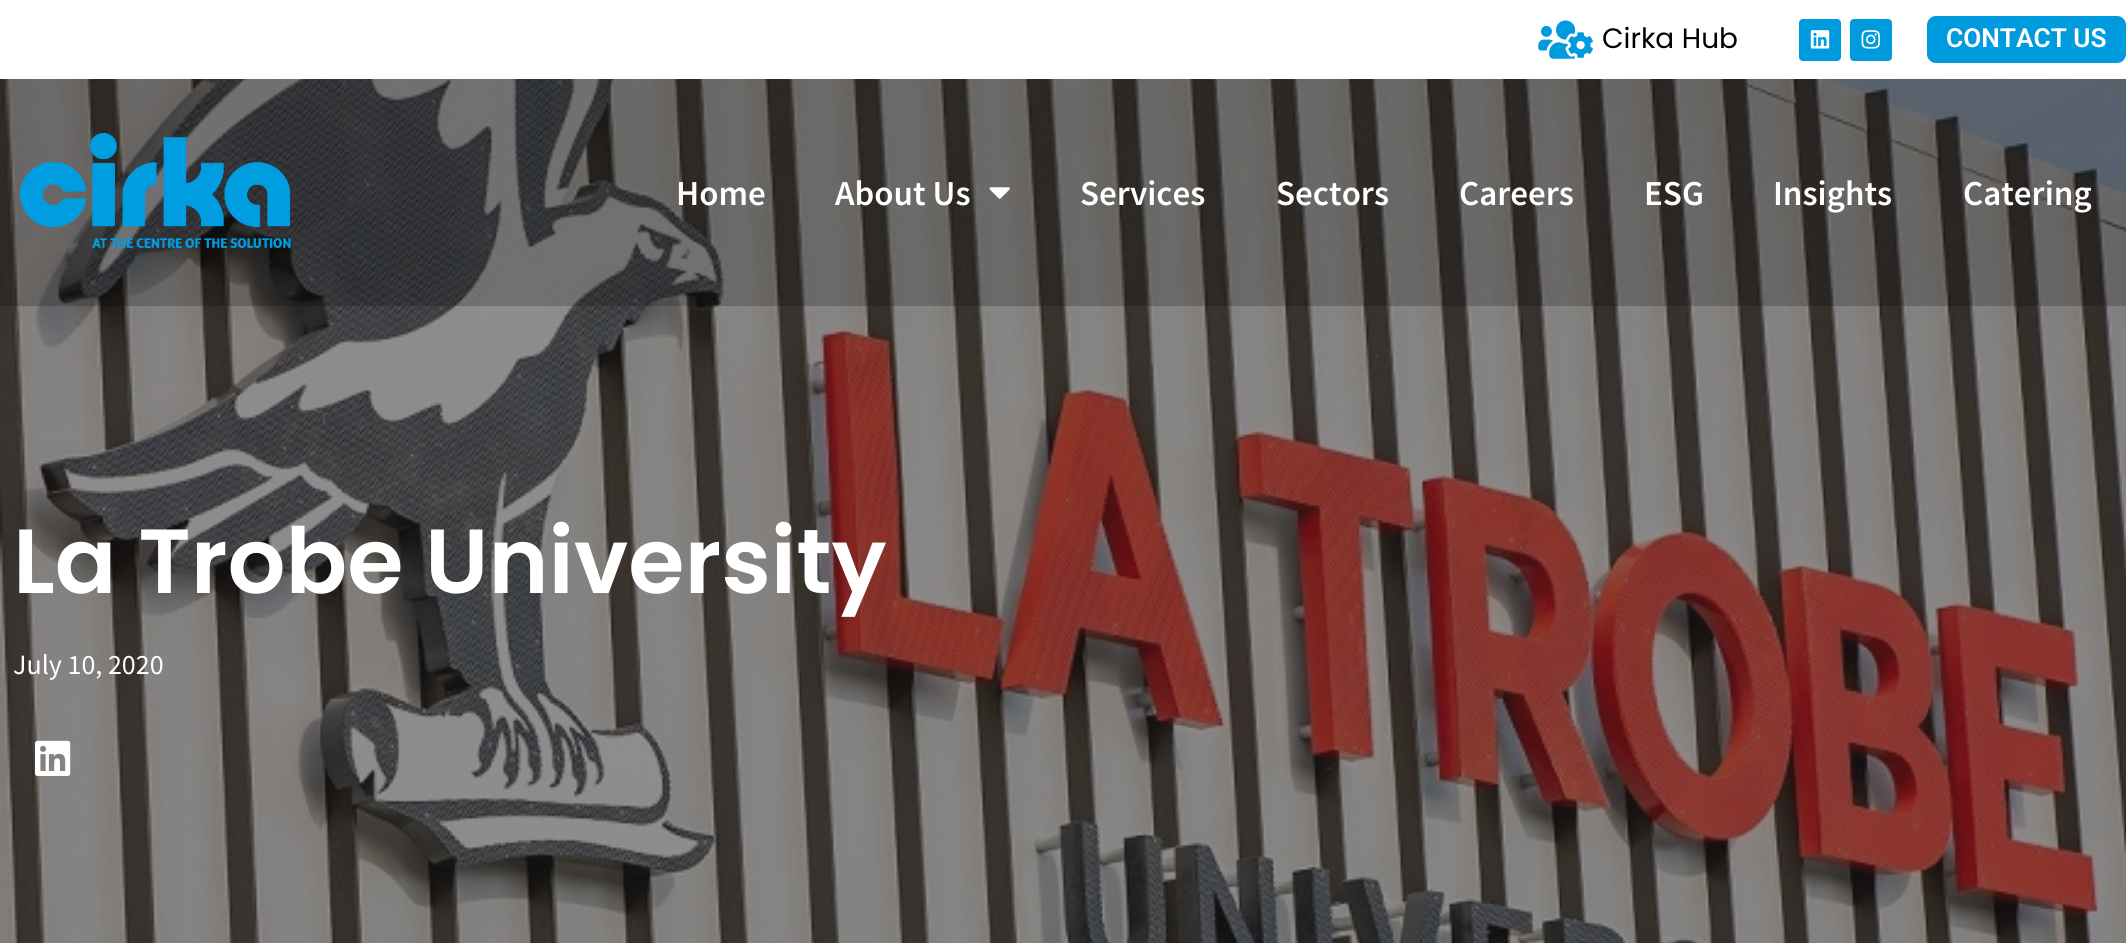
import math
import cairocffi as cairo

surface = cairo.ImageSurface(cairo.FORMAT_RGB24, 2126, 943)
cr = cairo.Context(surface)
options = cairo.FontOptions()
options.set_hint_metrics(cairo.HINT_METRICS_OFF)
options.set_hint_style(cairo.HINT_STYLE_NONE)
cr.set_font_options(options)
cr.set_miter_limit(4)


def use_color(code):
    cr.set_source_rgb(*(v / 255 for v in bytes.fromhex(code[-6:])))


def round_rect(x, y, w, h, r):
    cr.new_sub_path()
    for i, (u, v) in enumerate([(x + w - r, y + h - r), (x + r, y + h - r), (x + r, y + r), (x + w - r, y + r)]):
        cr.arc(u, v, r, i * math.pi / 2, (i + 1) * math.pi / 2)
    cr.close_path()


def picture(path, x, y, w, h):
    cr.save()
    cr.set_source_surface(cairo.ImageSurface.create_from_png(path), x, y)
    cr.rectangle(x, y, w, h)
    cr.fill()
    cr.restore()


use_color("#ffffff")
cr.paint()
picture("img1.png", 1538, 20, 55, 39)
cr.select_font_face("Poppins")
cr.set_font_size(28)
use_color("#000000")
cr.move_to(1602, 48)
cr.show_text("Cirka Hub")
use_color("#009bdf")
round_rect(1799, 19, 42, 42, 4)
cr.fill()
picture("img2.png", 1810, 30, 20, 19)
round_rect(1850, 19, 42, 42, 4)
cr.fill()
picture("img3.png", 1861, 30, 19, 19)
round_rect(1928, 17, 197, 45, 8)
cr.fill_preserve()
cr.stroke()
cr.select_font_face("Roboto SemiBold")
cr.set_font_size(26.25)
use_color("#ffffff")
cr.move_to(1946, 47)
cr.show_text("CONTACT US")
picture("img6.png", 0, 79, 2126, 864)
cr.set_source_rgba(0, 0, 0, 0.2)
cr.rectangle(0, 79, 2126, 227)
cr.fill()
picture("img4.png", 20, 133, 271, 115)
cr.select_font_face("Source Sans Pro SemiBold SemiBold")
cr.set_font_size(35)
use_color("#ffffff")
cr.move_to(676, 205)
cr.show_text("Home")
cr.move_to(835, 205)
cr.show_text("About Us")
picture("img5.png", 989, 187, 21, 12)
cr.move_to(1080, 205)
cr.show_text("Services")
cr.move_to(1276, 205)
cr.show_text("Sectors")
cr.move_to(1459, 205)
cr.show_text("Careers")
cr.move_to(1644, 205)
cr.show_text("ESG")
cr.move_to(1773, 205)
cr.show_text("Insights")
cr.move_to(1963, 205)
cr.show_text("Catering")
cr.select_font_face("Poppins SemiBold")
cr.set_font_size(91)
cr.move_to(13, 593)
cr.show_text("La Trobe University")
cr.select_font_face("Source Sans Pro")
cr.set_font_size(28)
cr.move_to(13, 674)
cr.show_text("July 10, 2020")
picture("img7.png", 35, 740, 36, 36)
surface.write_to_png("result.png")
